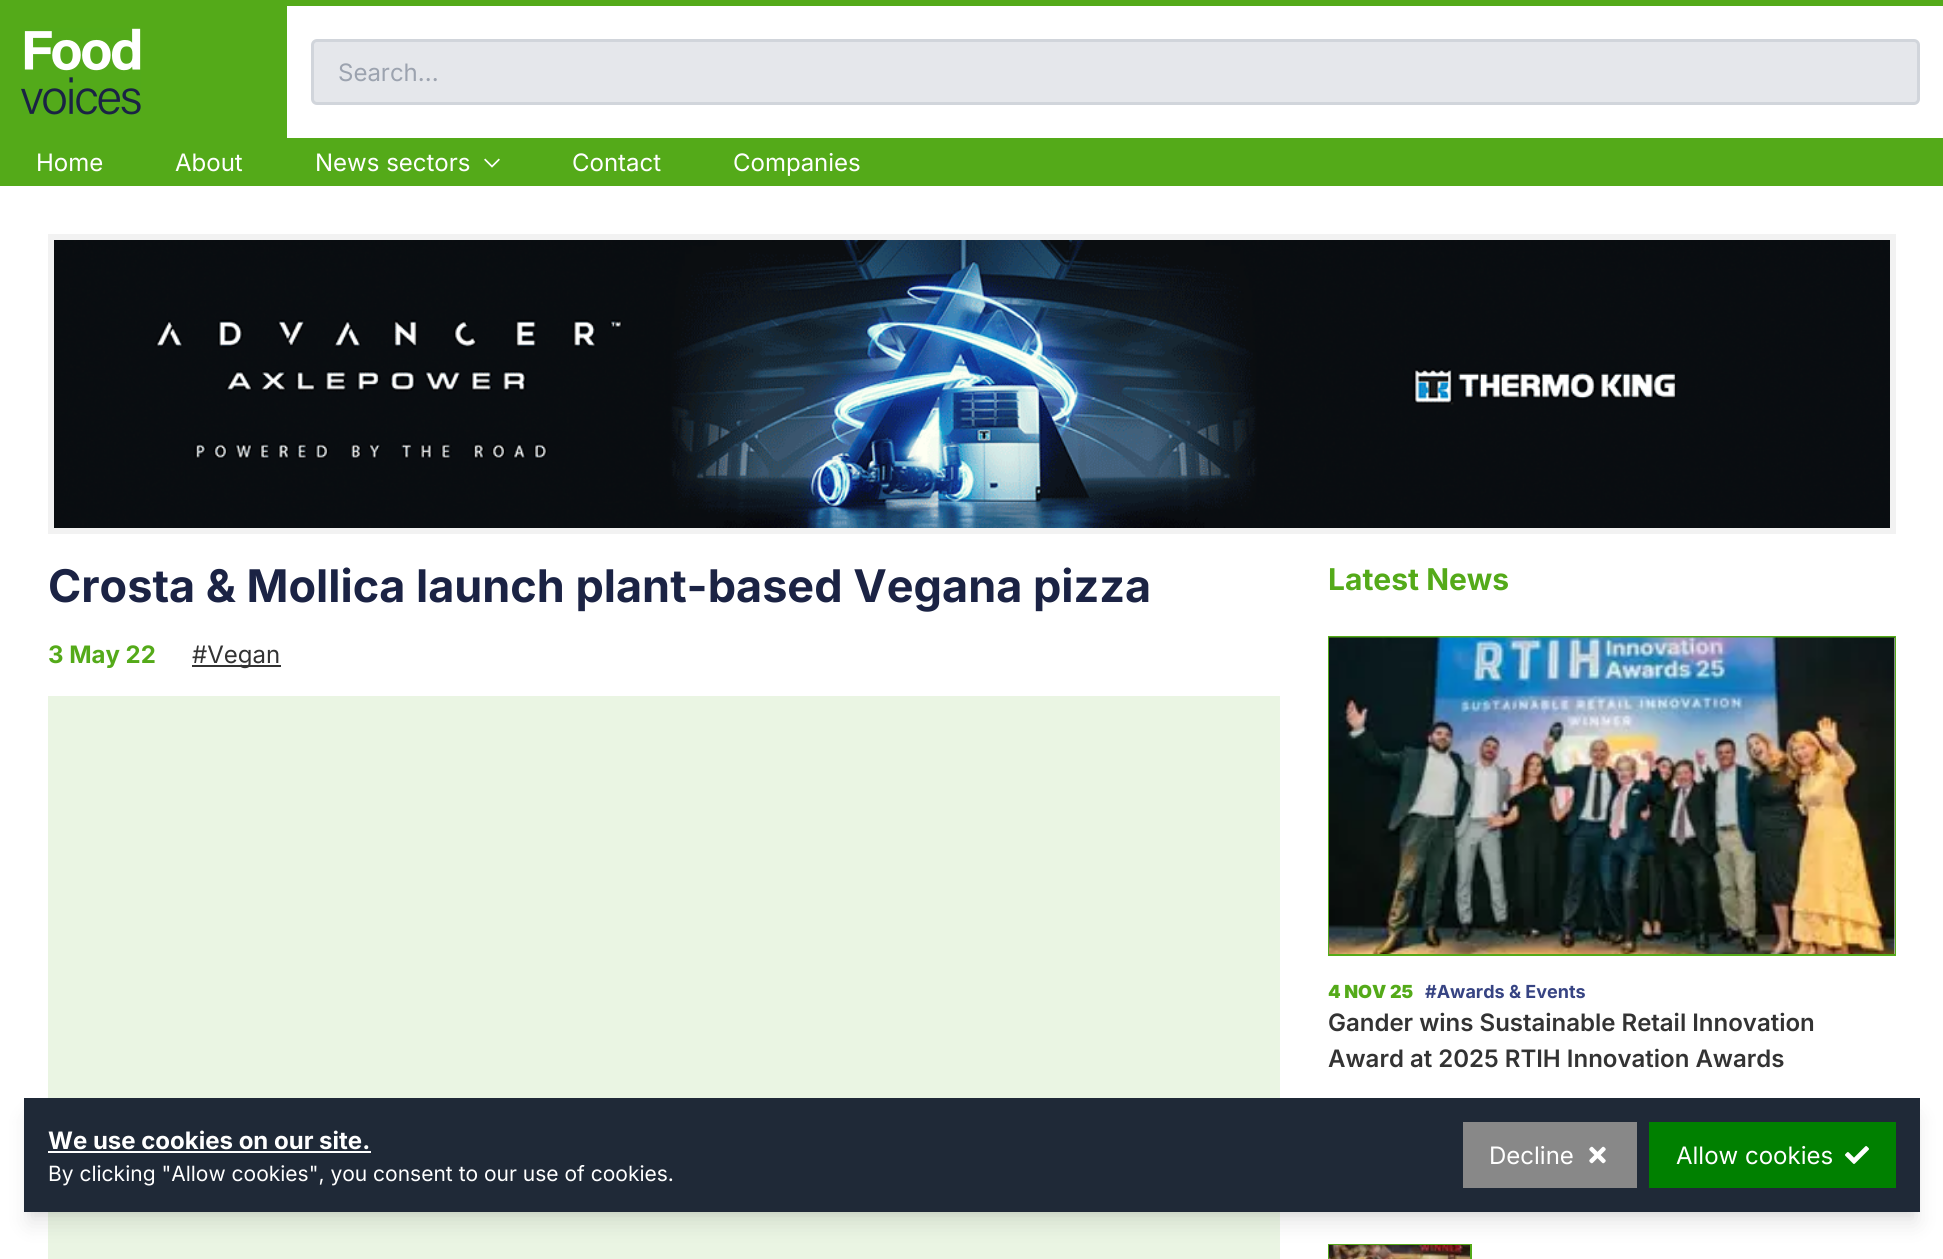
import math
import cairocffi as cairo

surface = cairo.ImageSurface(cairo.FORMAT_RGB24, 1943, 1259)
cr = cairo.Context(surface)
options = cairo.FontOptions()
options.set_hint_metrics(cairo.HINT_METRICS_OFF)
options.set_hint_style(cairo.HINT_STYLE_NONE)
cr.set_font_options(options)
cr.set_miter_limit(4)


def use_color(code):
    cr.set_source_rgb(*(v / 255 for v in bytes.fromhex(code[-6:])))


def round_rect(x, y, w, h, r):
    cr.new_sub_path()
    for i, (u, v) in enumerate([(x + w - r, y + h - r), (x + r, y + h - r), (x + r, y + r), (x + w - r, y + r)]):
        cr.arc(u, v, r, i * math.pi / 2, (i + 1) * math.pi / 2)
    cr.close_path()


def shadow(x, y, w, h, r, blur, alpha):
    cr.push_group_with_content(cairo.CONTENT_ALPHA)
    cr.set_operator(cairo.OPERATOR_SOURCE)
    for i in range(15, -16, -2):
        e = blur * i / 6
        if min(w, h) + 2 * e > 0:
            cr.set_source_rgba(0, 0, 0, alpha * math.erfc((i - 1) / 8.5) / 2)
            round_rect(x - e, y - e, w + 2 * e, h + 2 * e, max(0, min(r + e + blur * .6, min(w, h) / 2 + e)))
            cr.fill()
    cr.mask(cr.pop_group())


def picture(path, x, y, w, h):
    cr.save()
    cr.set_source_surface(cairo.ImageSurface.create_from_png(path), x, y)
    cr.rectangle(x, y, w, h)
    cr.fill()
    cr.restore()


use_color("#ffffff")
cr.paint()
use_color("#54aa19")
cr.rectangle(0, 0, 1943, 6)
cr.fill()
cr.rectangle(0, 6, 287, 132)
cr.fill()
picture("img1.png", 21, 28, 120, 87)
use_color("#e5e7eb")
round_rect(312.5, 40.5, 1606, 63, 4.5)
cr.fill_preserve()
use_color("#d1d5db")
cr.set_line_width(3)
cr.stroke()
cr.select_font_face("Inter")
cr.set_font_size(24)
use_color("#9ca3af")
cr.move_to(338, 81)
cr.show_text("Search...")
use_color("#54aa19")
cr.rectangle(0, 138, 1943, 48)
cr.fill()
use_color("#ffffff")
cr.move_to(36, 171)
cr.show_text("Home")
cr.move_to(175, 171)
cr.show_text("About")
cr.move_to(315, 171)
cr.show_text("News sectors")
picture("img2.png", 484, 158, 16, 10)
cr.move_to(572, 171)
cr.show_text("Contact")
cr.move_to(733, 171)
cr.show_text("Companies")
use_color("#f2f2f2")
cr.rectangle(48, 234, 1848, 300)
cr.fill()
picture("img3.png", 54, 240, 1836, 288)
cr.select_font_face("Inter", cairo.FONT_SLANT_NORMAL, cairo.FONT_WEIGHT_BOLD)
cr.set_font_size(45)
use_color("#1b2344")
cr.move_to(48, 602)
cr.show_text("Crosta & Mollica launch plant-based Vegana pizza")
cr.set_font_size(24)
use_color("#54aa19")
cr.move_to(48, 663)
cr.show_text("3 May 22")
use_color("#333333")
cr.rectangle(192, 665, 89, 2)
cr.fill()
cr.select_font_face("Inter")
cr.move_to(192, 663)
cr.show_text("#Vegan")
use_color("#eaf5e3")
cr.rectangle(48, 696, 1232, 563)
cr.fill()
cr.select_font_face("Inter", cairo.FONT_SLANT_NORMAL, cairo.FONT_WEIGHT_BOLD)
cr.set_font_size(30)
use_color("#54aa19")
cr.move_to(1328, 590)
cr.show_text("Latest News")
cr.rectangle(1329, 637, 566, 318)
cr.set_line_width(2)
cr.stroke()
use_color("#ffffff")
cr.rectangle(1894, 638, 1, 316)
cr.fill()
picture("img4.png", 1329, 637, 566, 317)
cr.select_font_face("Inter Black")
cr.set_font_size(18)
use_color("#54aa19")
cr.move_to(1328, 998)
cr.show_text("4 NOV 25")
cr.select_font_face("Inter", cairo.FONT_SLANT_NORMAL, cairo.FONT_WEIGHT_BOLD)
use_color("#374483")
cr.move_to(1425, 998)
cr.show_text("#Awards & Events")
cr.select_font_face("Inter SemiBold")
cr.set_font_size(24)
use_color("#333333")
cr.move_to(1328, 1031)
cr.show_text("Gander wins Sustainable Retail Innovation")
cr.move_to(1328, 1067)
cr.show_text("Award at 2025 RTIH Innovation Awards")
cr.rectangle(1329, 1245, 142, 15)
use_color("#54aa19")
cr.stroke()
picture("img5.png", 1329, 1245, 141, 14)
use_color("#000000")
shadow(30, 1110, 1884, 102, 0, 4.5, 0.1)
shadow(29, 1118, 1887, 105, 0, 11, 0.1)
use_color("#1f2937")
cr.rectangle(24, 1098, 1896, 114)
cr.fill()
cr.select_font_face("Inter", cairo.FONT_SLANT_NORMAL, cairo.FONT_WEIGHT_BOLD)
use_color("#ffffff")
cr.move_to(48, 1149)
cr.show_text("We use cookies on our site.")
cr.rectangle(48, 1151, 323, 2)
cr.fill()
cr.select_font_face("Inter")
cr.set_font_size(21)
cr.move_to(48, 1181)
cr.show_text("By clicking \"Allow cookies\", you consent to our use of cookies.")
use_color("#888888")
cr.rectangle(1463, 1122, 174, 66)
cr.fill()
cr.set_font_size(24)
use_color("#ffffff")
cr.move_to(1489, 1164)
cr.show_text("Decline")
picture("img6.png", 1589, 1146, 17, 18)
use_color("#008000")
cr.rectangle(1649, 1122, 247, 66)
cr.fill()
use_color("#ffffff")
cr.move_to(1676, 1164)
cr.show_text("Allow cookies")
picture("img7.png", 1845, 1146, 24, 18)
surface.write_to_png("result.png")
